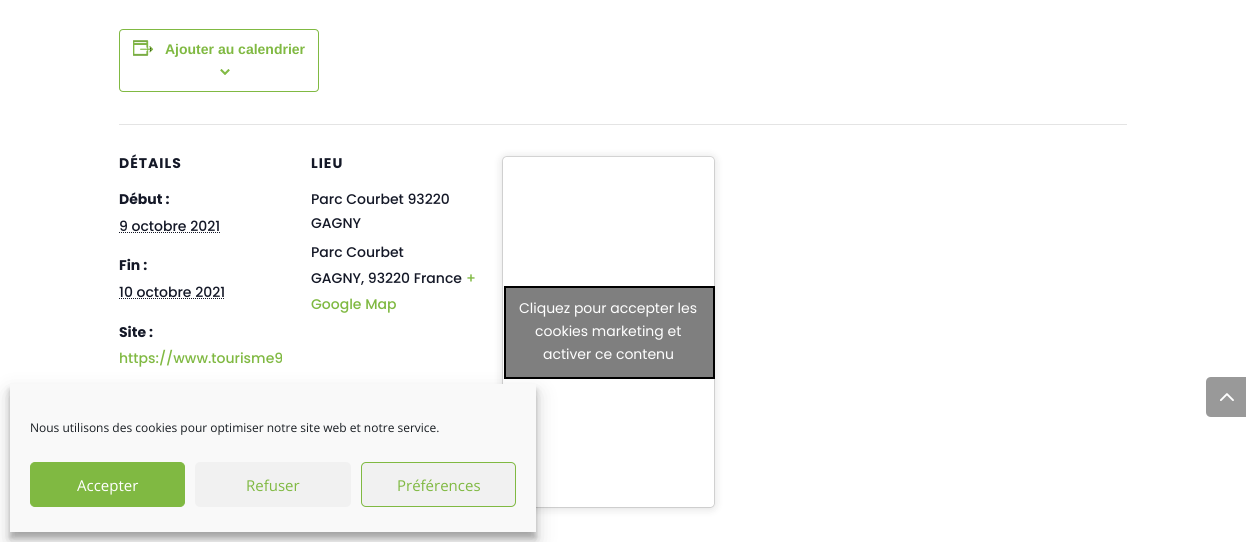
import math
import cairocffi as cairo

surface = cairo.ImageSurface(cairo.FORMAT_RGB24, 1246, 542)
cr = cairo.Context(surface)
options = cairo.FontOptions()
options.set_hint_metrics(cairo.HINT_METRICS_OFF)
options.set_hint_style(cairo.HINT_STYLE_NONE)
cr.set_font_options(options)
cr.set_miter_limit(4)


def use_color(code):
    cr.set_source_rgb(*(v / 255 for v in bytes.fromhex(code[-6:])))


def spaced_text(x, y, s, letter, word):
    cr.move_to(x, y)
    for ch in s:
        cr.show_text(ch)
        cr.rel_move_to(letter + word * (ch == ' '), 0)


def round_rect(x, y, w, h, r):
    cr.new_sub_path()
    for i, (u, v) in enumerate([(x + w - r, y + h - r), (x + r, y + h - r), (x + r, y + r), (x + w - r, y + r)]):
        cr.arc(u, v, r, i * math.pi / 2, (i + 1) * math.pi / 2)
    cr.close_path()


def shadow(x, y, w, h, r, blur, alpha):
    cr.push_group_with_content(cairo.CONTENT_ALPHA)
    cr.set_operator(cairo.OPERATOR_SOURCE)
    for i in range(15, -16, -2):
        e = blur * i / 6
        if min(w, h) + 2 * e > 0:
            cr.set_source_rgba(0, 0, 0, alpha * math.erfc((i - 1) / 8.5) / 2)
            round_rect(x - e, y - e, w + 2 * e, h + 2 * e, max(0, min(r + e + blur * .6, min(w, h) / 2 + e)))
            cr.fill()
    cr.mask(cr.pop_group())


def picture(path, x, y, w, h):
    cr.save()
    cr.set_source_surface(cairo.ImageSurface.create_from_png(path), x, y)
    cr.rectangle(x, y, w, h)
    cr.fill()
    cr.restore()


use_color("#ffffff")
cr.paint()
round_rect(119.5, 29.5, 199, 62, 3.5)
use_color("#80b942")
cr.set_line_width(1)
cr.stroke()
picture("img1.png", 133, 40, 21, 16)
cr.select_font_face("Liberation Sans", cairo.FONT_SLANT_NORMAL, cairo.FONT_WEIGHT_BOLD)
cr.set_font_size(14)
cr.move_to(165, 54)
cr.show_text("Ajouter au calendrier")
picture("img2.png", 220, 69, 10, 6)
use_color("#e4e4e4")
cr.rectangle(119, 124, 1008, 1)
cr.fill()
cr.select_font_face("Poppins", cairo.FONT_SLANT_NORMAL, cairo.FONT_WEIGHT_BOLD)
use_color("#141827")
spaced_text(119, 168, "DÉTAILS", 1, 0)
cr.move_to(119, 204)
cr.show_text("Début :")
cr.select_font_face("Poppins Medium")
cr.move_to(119, 231)
cr.show_text("9 octobre 2021")
cr.new_path()
cr.move_to(119, 232.5)
cr.line_to(220, 232.5)
cr.set_dash([1, 1])
cr.stroke()
cr.select_font_face("Poppins", cairo.FONT_SLANT_NORMAL, cairo.FONT_WEIGHT_BOLD)
cr.move_to(119, 270)
cr.show_text("Fin :")
cr.select_font_face("Poppins Medium")
cr.move_to(119, 297)
cr.show_text("10 octobre 2021")
cr.new_path()
cr.move_to(119, 298.5)
cr.line_to(225, 298.5)
cr.stroke()
cr.select_font_face("Poppins", cairo.FONT_SLANT_NORMAL, cairo.FONT_WEIGHT_BOLD)
cr.move_to(119, 337)
cr.show_text("Site :")
cr.select_font_face("Poppins Medium")
use_color("#80b942")
cr.move_to(119, 363)
cr.show_text("https://www.tourisme9")
cr.select_font_face("Poppins", cairo.FONT_SLANT_NORMAL, cairo.FONT_WEIGHT_BOLD)
use_color("#141827")
spaced_text(311, 168, "LIEU", 1, 0)
cr.select_font_face("Poppins Medium")
cr.move_to(311, 204)
cr.show_text("Parc Courbet 93220")
cr.move_to(311, 228)
cr.show_text("GAGNY")
cr.move_to(311, 257)
cr.show_text("Parc Courbet")
cr.move_to(311, 283)
cr.show_text("GAGNY, 93220 France")
use_color("#80b942")
cr.move_to(466, 283)
cr.show_text("+")
cr.move_to(311, 309)
cr.show_text("Google Map")
use_color("#000000")
shadow(503, 158, 211, 350, 3, 5, 0.15)
shadow(503, 157, 211, 350, 3, 0.5, 0.5)
use_color("#ffffff")
round_rect(503, 157, 211, 350, 3)
cr.fill()
cr.set_source_rgba(0, 0, 0, 0.5)
cr.rectangle(505, 287, 209, 91)
cr.fill_preserve()
use_color("#000000")
cr.set_line_width(2)
cr.set_dash([])
cr.stroke()
cr.select_font_face("Poppins")
use_color("#ffffff")
cr.move_to(519, 313)
cr.show_text("Cliquez pour accepter les")
cr.move_to(535, 336)
cr.show_text("cookies marketing et")
cr.move_to(543, 359)
cr.show_text("activer ce contenu")
use_color("#999999")
cr.new_path()
cr.move_to(1211, 377)
cr.line_to(1246, 377)
cr.line_to(1246, 417)
cr.line_to(1211, 417)
cr.curve_to(1208, 417, 1206, 415, 1206, 412)
cr.line_to(1206, 382)
cr.curve_to(1206, 379, 1208, 377, 1211, 377)
cr.close_path()
cr.fill()
picture("img3.png", 1220, 393, 14, 8)
use_color("#000000")
shadow(10, 390, 526, 148, 0, 3, 0.23)
shadow(10, 394, 526, 148, 0, 10, 0.19)
use_color("#f9f9f9")
cr.rectangle(10, 384, 526, 148)
cr.fill()
cr.select_font_face("Open Sans")
cr.set_font_size(12)
use_color("#191e23")
cr.move_to(30, 432)
cr.show_text("Nous utilisons des cookies pour optimiser notre site web et notre service.")
use_color("#80b942")
round_rect(30.5, 462.5, 154, 44, 4.5)
cr.fill_preserve()
cr.set_line_width(1)
cr.stroke()
cr.set_font_size(15)
use_color("#ffffff")
cr.move_to(77, 491)
cr.show_text("Accepter")
use_color("#f1f1f1")
round_rect(195, 462, 156, 45, 5)
cr.fill()
use_color("#80b942")
cr.move_to(246, 491)
cr.show_text("Refuser")
use_color("#f1f1f1")
round_rect(361.5, 462.5, 154, 44, 4.5)
cr.fill_preserve()
use_color("#80b942")
cr.stroke()
cr.move_to(397, 491)
cr.show_text("Préférences")
surface.write_to_png("result.png")
